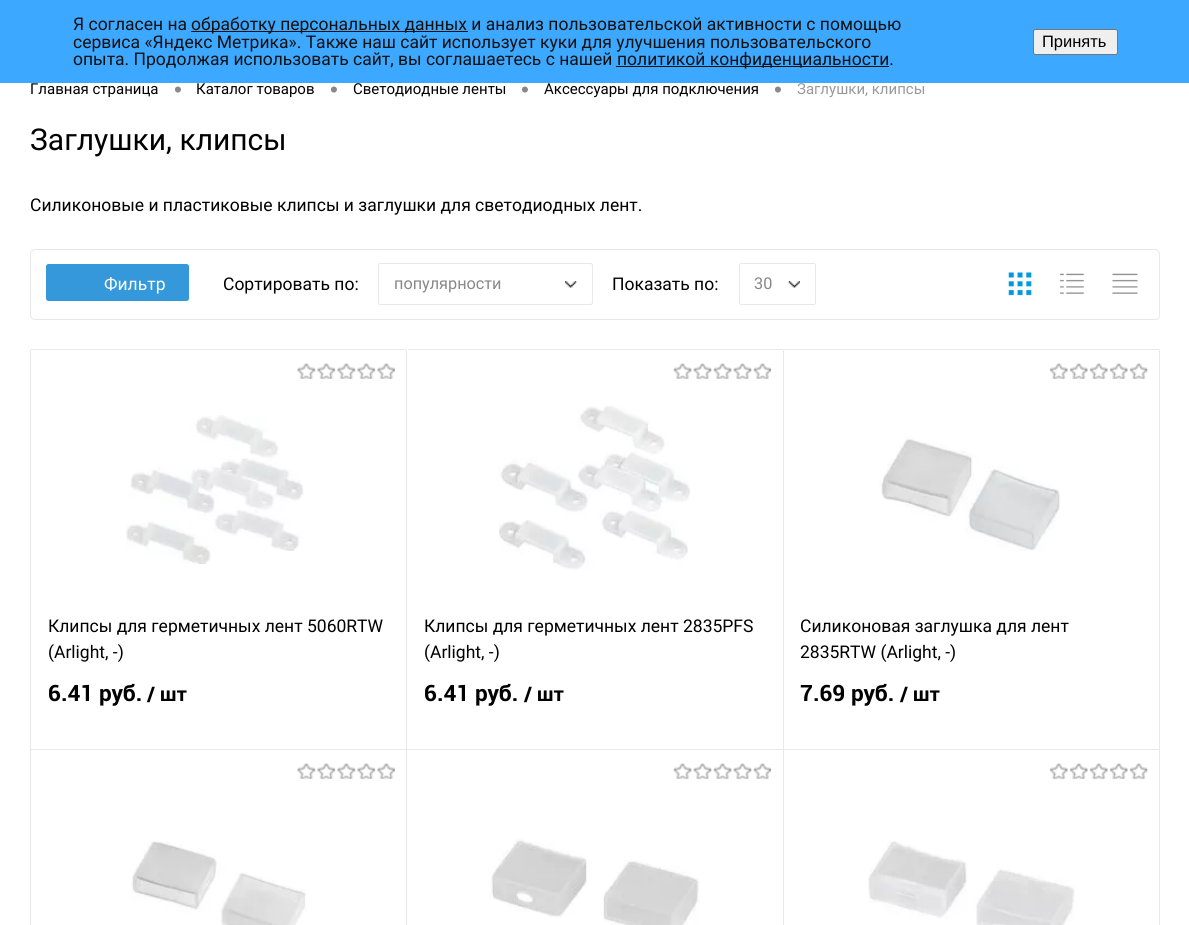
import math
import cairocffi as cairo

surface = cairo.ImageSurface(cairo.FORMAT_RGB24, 1189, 925)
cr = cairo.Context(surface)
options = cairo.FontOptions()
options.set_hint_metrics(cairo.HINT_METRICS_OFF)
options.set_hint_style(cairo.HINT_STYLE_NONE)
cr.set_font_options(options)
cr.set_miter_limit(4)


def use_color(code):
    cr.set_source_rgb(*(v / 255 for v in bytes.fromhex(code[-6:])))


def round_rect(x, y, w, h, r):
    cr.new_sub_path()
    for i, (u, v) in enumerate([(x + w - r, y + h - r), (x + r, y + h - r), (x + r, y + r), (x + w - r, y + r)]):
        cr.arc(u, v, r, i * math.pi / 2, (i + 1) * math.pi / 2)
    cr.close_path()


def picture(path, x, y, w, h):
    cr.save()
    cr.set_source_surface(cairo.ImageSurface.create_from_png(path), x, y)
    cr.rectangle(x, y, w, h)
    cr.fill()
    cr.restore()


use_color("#ffffff")
cr.paint()
use_color("#3da8ff")
cr.rectangle(0, 0, 1189, 83)
cr.fill()
cr.select_font_face("Roboto")
cr.set_font_size(17.5)
use_color("#111111")
cr.move_to(73, 30)
cr.show_text("Я согласен на")
cr.rectangle(191, 31, 277, 1)
cr.fill()
cr.move_to(191, 30)
cr.show_text("обработку персональных данных и анализ пользовательской активности с помощью")
cr.move_to(73, 48)
cr.show_text("сервиса «Яндекс Метрика». Также наш сайт использует куки для улучшения пользовательского")
cr.move_to(73, 65)
cr.show_text("опыта. Продолжая использовать сайт, вы соглашаетесь с нашей")
cr.rectangle(616, 66, 273, 1)
cr.fill()
cr.move_to(617, 65)
cr.show_text("политикой конфиденциальности.")
use_color("#efefef")
round_rect(1033.5, 29.5, 84, 25, 2)
cr.fill_preserve()
use_color("#767676")
cr.set_line_width(1)
cr.stroke()
cr.select_font_face("Liberation Sans")
cr.set_font_size(16.5)
use_color("#000000")
cr.move_to(1042, 47)
cr.show_text("Принять")
cr.select_font_face("Roboto")
cr.set_font_size(15)
cr.move_to(30, 94)
cr.show_text("Главная страница")
cr.select_font_face("Liberation Sans")
cr.set_font_size(22.5)
use_color("#888888")
cr.move_to(174, 97)
cr.show_text("•")
cr.select_font_face("Roboto")
cr.set_font_size(15)
use_color("#000000")
cr.move_to(196, 94)
cr.show_text("Каталог товаров")
cr.select_font_face("Liberation Sans")
cr.set_font_size(22.5)
use_color("#888888")
cr.move_to(330, 97)
cr.show_text("•")
cr.select_font_face("Roboto")
cr.set_font_size(15)
use_color("#000000")
cr.move_to(353, 94)
cr.show_text("Светодиодные ленты")
cr.select_font_face("Liberation Sans")
cr.set_font_size(22.5)
use_color("#888888")
cr.move_to(521, 97)
cr.show_text("•")
cr.select_font_face("Roboto")
cr.set_font_size(15)
use_color("#000000")
cr.move_to(544, 94)
cr.show_text("Аксессуары для подключения")
cr.select_font_face("Liberation Sans")
cr.set_font_size(22.5)
use_color("#888888")
cr.move_to(774, 97)
cr.show_text("•")
cr.select_font_face("Roboto")
cr.set_font_size(15)
use_color("#999999")
cr.move_to(797, 94)
cr.show_text("Заглушки, клипсы")
cr.set_font_size(30)
use_color("#000000")
cr.move_to(30, 150)
cr.show_text("Заглушки, клипсы")
cr.set_font_size(17.5)
cr.move_to(30, 211)
cr.show_text("Силиконовые и пластиковые клипсы и заглушки для светодиодных лент.")
round_rect(30.5, 249.5, 1129, 70, 4.5)
use_color("#e7e8ea")
cr.stroke()
use_color("#3498db")
round_rect(46, 264, 143, 37, 2.5)
cr.fill()
use_color("#ffffff")
cr.move_to(104, 290)
cr.show_text("Фильтр")
use_color("#000000")
cr.move_to(223, 290)
cr.show_text("Сортировать по:")
round_rect(378.5, 263.5, 214, 41, 2)
use_color("#e7e8ea")
cr.stroke()
cr.set_font_size(16.25)
use_color("#888888")
cr.move_to(394, 289)
cr.show_text("популярности")
picture("img1.png", 565, 281, 12, 7)
cr.set_font_size(17.5)
use_color("#000000")
cr.move_to(612, 290)
cr.show_text("Показать по:")
round_rect(739.5, 263.5, 76, 41, 2)
use_color("#e7e8ea")
cr.stroke()
cr.set_font_size(16.25)
use_color("#888888")
cr.move_to(754, 289)
cr.show_text("30")
picture("img2.png", 788, 281, 12, 7)
picture("img3.png", 1008, 272, 24, 24)
picture("img4.png", 1059, 273, 25, 21)
picture("img5.png", 1112, 273, 26, 21)
use_color("#e7e8ea")
cr.rectangle(30, 350, 1, 575)
cr.fill()
cr.rectangle(406, 350, 1, 575)
cr.fill()
cr.rectangle(31, 749, 377, 1)
cr.fill()
cr.rectangle(31, 349, 375, 1)
cr.fill()
picture("img6.png", 297, 363, 98, 17)
picture("img7.png", 126, 415, 178, 149)
cr.set_font_size(17.5)
use_color("#000000")
cr.move_to(48, 632)
cr.show_text("Клипсы для герметичных лент 5060RTW")
cr.move_to(48, 658)
cr.show_text("(Arlight, -)")
cr.select_font_face("Roboto", cairo.FONT_SLANT_NORMAL, cairo.FONT_WEIGHT_BOLD)
cr.set_font_size(22.5)
cr.move_to(48, 701)
cr.show_text("6.41 руб.")
cr.set_font_size(20)
cr.move_to(147, 701)
cr.show_text("/ шт")
use_color("#e7e8ea")
cr.rectangle(783, 350, 1, 575)
cr.fill()
cr.rectangle(408, 749, 376, 1)
cr.fill()
cr.rectangle(408, 349, 375, 1)
cr.fill()
picture("img8.png", 673, 363, 99, 17)
picture("img9.png", 498, 406, 192, 164)
cr.select_font_face("Roboto")
cr.set_font_size(17.5)
use_color("#000000")
cr.move_to(424, 632)
cr.show_text("Клипсы для герметичных лент 2835PFS")
cr.move_to(424, 658)
cr.show_text("(Arlight, -)")
cr.select_font_face("Roboto", cairo.FONT_SLANT_NORMAL, cairo.FONT_WEIGHT_BOLD)
cr.set_font_size(22.5)
cr.move_to(424, 701)
cr.show_text("6.41 руб.")
cr.set_font_size(20)
cr.move_to(524, 701)
cr.show_text("/ шт")
use_color("#e7e8ea")
cr.rectangle(1159, 350, 1, 575)
cr.fill()
cr.rectangle(784, 749, 376, 1)
cr.fill()
cr.rectangle(784, 349, 375, 1)
cr.fill()
picture("img10.png", 1049, 363, 99, 17)
picture("img11.png", 879, 437, 181, 114)
cr.select_font_face("Roboto")
cr.set_font_size(17.5)
use_color("#000000")
cr.move_to(800, 632)
cr.show_text("Силиконовая заглушка для лент")
cr.move_to(800, 658)
cr.show_text("2835RTW (Arlight, -)")
cr.select_font_face("Roboto", cairo.FONT_SLANT_NORMAL, cairo.FONT_WEIGHT_BOLD)
cr.set_font_size(22.5)
cr.move_to(800, 701)
cr.show_text("7.69 руб.")
cr.set_font_size(20)
cr.move_to(900, 701)
cr.show_text("/ шт")
picture("img12.png", 297, 763, 98, 17)
picture("img13.png", 131, 841, 176, 84)
picture("img14.png", 673, 763, 99, 17)
picture("img15.png", 489, 839, 211, 86)
picture("img16.png", 1049, 763, 99, 17)
picture("img17.png", 868, 841, 207, 84)
surface.write_to_png("result.png")
